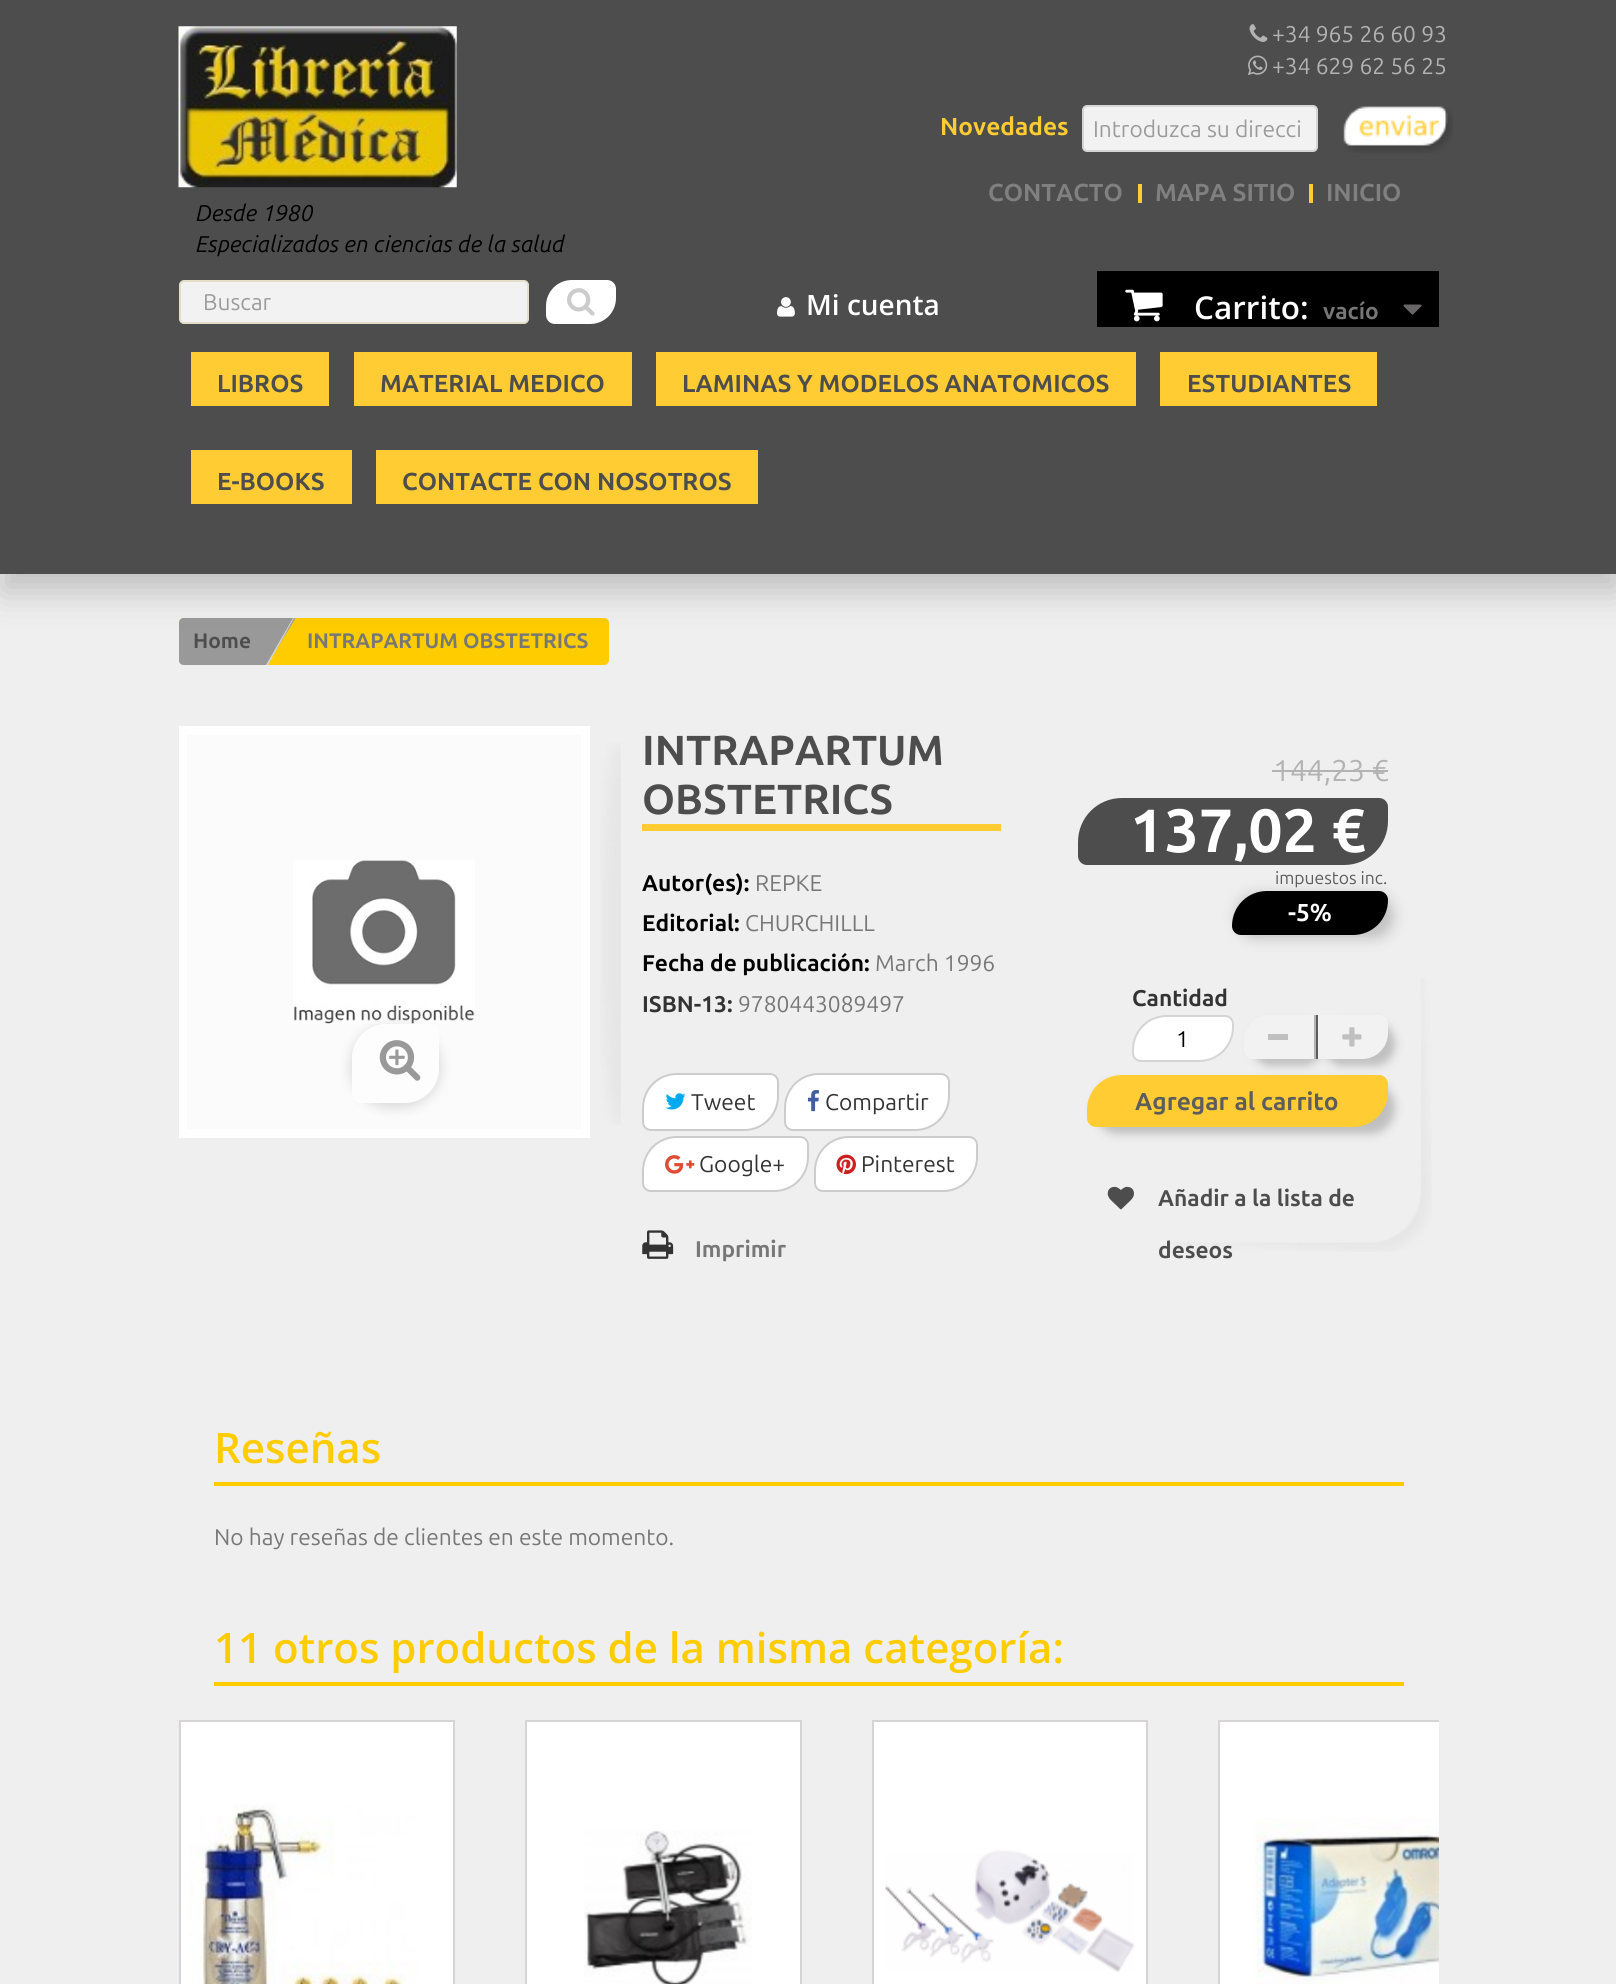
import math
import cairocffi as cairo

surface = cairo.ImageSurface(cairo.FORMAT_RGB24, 1616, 1984)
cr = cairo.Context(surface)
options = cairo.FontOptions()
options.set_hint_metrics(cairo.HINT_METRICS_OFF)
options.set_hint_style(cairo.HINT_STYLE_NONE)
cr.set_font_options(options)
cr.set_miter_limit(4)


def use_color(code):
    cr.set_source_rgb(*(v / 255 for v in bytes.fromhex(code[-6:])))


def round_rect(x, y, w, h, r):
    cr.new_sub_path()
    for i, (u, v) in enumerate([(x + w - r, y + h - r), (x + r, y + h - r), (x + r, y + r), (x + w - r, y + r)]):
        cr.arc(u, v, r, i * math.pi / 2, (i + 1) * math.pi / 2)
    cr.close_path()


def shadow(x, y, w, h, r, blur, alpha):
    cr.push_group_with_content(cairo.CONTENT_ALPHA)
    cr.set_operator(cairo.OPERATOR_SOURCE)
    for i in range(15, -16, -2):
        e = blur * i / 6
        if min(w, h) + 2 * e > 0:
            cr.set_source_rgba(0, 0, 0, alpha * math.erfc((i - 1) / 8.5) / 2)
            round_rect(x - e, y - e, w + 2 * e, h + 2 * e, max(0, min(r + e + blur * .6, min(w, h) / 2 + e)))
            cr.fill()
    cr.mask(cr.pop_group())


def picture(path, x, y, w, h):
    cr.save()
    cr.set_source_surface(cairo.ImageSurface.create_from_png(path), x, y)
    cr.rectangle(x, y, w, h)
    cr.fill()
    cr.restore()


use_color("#efefef")
cr.paint()
use_color("#ffcc00")
round_rect(179, 618, 430, 47, 5)
cr.fill()
use_color("#999999")
cr.new_path()
cr.move_to(184, 618)
cr.line_to(266, 618)
cr.line_to(266, 665)
cr.line_to(184, 665)
cr.curve_to(181, 665, 179, 663, 179, 660)
cr.line_to(179, 623)
cr.curve_to(179, 620, 181, 618, 184, 618)
cr.close_path()
cr.fill()
cr.new_path()
cr.move_to(267, 665)
cr.line_to(263, 665)
cr.line_to(242, 653)
cr.curve_to(241, 652, 240, 650, 241, 648)
cr.line_to(258, 618)
cr.line_to(295, 618)
cr.line_to(295, 619)
cr.close_path()
cr.fill()
use_color("#d6d4d4")
cr.new_path()
cr.move_to(268, 665)
cr.line_to(266, 665)
cr.line_to(293, 618)
cr.line_to(294, 618)
cr.close_path()
cr.fill()
use_color("#000000")
shadow(2, 18, 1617, 574, 0, 17.5, 0.2)
use_color("#4d4d4d")
cr.rectangle(0, 0, 1616, 574)
cr.fill()
picture("img1.png", 1249, 24, 19, 18)
cr.select_font_face("Ubuntu")
cr.set_font_size(22.75)
use_color("#b3b3b3")
cr.move_to(1272, 42)
cr.show_text("+34 965 26 60 93")
picture("img2.png", 1247, 55, 21, 20)
cr.move_to(1272, 74)
cr.show_text("+34 629 62 56 25")
cr.select_font_face("Ubuntu", cairo.FONT_SLANT_NORMAL, cairo.FONT_WEIGHT_BOLD)
cr.set_font_size(24.5)
use_color("#ffcc33")
cr.move_to(940, 135)
cr.show_text("Novedades")
use_color("#f2f2f2")
round_rect(1083, 106, 234, 45, 4)
cr.fill_preserve()
use_color("#d6d4d4")
cr.stroke()
cr.select_font_face("Ubuntu")
cr.set_font_size(22.75)
use_color("#9c9b9b")
cr.move_to(1093, 137)
cr.show_text("Introduzca su direcci")
picture("img3.png", 1343, 106, 110, 47)
cr.select_font_face("Ubuntu", cairo.FONT_SLANT_NORMAL, cairo.FONT_WEIGHT_BOLD)
cr.set_font_size(24.5)
use_color("#808080")
cr.move_to(988, 201)
cr.show_text("CONTACTO")
use_color("#ffcc33")
cr.rectangle(1138, 184, 4, 19)
cr.fill()
use_color("#808080")
cr.move_to(1155, 201)
cr.show_text("MAPA SITIO")
use_color("#ffcc33")
cr.rectangle(1309, 184, 4, 19)
cr.fill()
use_color("#808080")
cr.move_to(1326, 201)
cr.show_text("INICIO")
picture("img4.png", 178, 26, 279, 162)
cr.select_font_face("Ubuntu", cairo.FONT_SLANT_ITALIC)
cr.set_font_size(22.75)
use_color("#000000")
cr.move_to(196, 221)
cr.show_text("Desde 1980")
cr.move_to(196, 252)
cr.show_text("Especializados en ciencias de la salud")
use_color("#f2f2f2")
round_rect(180, 281, 348, 42, 4)
cr.fill_preserve()
use_color("#e2dec8")
cr.stroke()
cr.select_font_face("Ubuntu")
use_color("#9c9b9b")
cr.move_to(203, 310)
cr.show_text("Buscar")
use_color("#ffffff")
cr.new_path()
cr.move_to(572, 280)
cr.line_to(607, 280)
cr.curve_to(612, 280, 616, 284, 616, 289)
cr.line_to(616, 298)
cr.curve_to(616, 312.5, 604.5, 324, 590, 324)
cr.line_to(555, 324)
cr.curve_to(550, 324, 546, 320, 546, 315)
cr.line_to(546, 306)
cr.curve_to(546, 291.5, 557.5, 280, 572, 280)
cr.close_path()
cr.fill()
picture("img5.png", 567, 288, 28, 28)
picture("img6.png", 777, 297, 18, 20)
cr.select_font_face("Open Sans SemiBold")
cr.set_font_size(28)
cr.move_to(806, 315)
cr.show_text("Mi cuenta")
use_color("#000000")
cr.rectangle(1097, 271, 342, 56)
cr.fill()
picture("img7.png", 1125, 289, 38, 33)
cr.set_font_size(31.5)
use_color("#ffffff")
cr.move_to(1194, 319)
cr.show_text("Carrito:")
cr.select_font_face("Ubuntu", cairo.FONT_SLANT_NORMAL, cairo.FONT_WEIGHT_BOLD)
cr.set_font_size(22.75)
use_color("#777777")
cr.move_to(1323, 319)
cr.show_text("vacío")
picture("img8.png", 1403, 304, 19, 11)
use_color("#ffcc33")
cr.rectangle(191, 352, 138, 54)
cr.fill()
cr.set_font_size(24.5)
use_color("#4d4d4d")
cr.move_to(217, 392)
cr.show_text("LIBROS")
use_color("#ffcc33")
cr.rectangle(354, 352, 278, 54)
cr.fill()
use_color("#4d4d4d")
cr.move_to(380, 392)
cr.show_text("MATERIAL MEDICO")
use_color("#ffcc33")
cr.rectangle(656, 352, 480, 54)
cr.fill()
use_color("#4d4d4d")
cr.move_to(682, 392)
cr.show_text("LAMINAS Y MODELOS ANATOMICOS")
use_color("#ffcc33")
cr.rectangle(1160, 352, 217, 54)
cr.fill()
use_color("#4d4d4d")
cr.move_to(1187, 392)
cr.show_text("ESTUDIANTES")
use_color("#ffcc33")
cr.rectangle(191, 450, 161, 54)
cr.fill()
use_color("#4d4d4d")
cr.move_to(217, 490)
cr.show_text("E-BOOKS")
use_color("#ffcc33")
cr.rectangle(376, 450, 382, 54)
cr.fill()
use_color("#4d4d4d")
cr.move_to(402, 490)
cr.show_text("CONTACTE CON NOSOTROS")
cr.set_font_size(21)
cr.move_to(193, 648)
cr.show_text("Home")
use_color("#777777")
cr.move_to(307, 648)
cr.show_text("INTRAPARTUM OBSTETRICS")
use_color("#ffffff")
cr.rectangle(179, 726, 411, 412)
cr.fill()
use_color("#fbfbfb")
cr.rectangle(187, 735, 394, 394)
cr.fill()
picture("img9.png", 293, 860, 182, 164)
cr.save()
cr.set_fill_rule(cairo.FILL_RULE_EVEN_ODD)
cr.new_path()
cr.move_to(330, 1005)
cr.line_to(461, 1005)
cr.line_to(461, 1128)
cr.line_to(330, 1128)
cr.close_path()
cr.move_to(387, 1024)
cr.line_to(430, 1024)
cr.curve_to(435, 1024, 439, 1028, 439, 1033)
cr.line_to(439, 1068)
cr.curve_to(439, 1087.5, 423.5, 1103, 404, 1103)
cr.line_to(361, 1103)
cr.curve_to(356, 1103, 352, 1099, 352, 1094)
cr.line_to(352, 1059)
cr.curve_to(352, 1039.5, 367.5, 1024, 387, 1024)
cr.close_path()
cr.clip()
use_color("#000000")
shadow(352, 1027, 87, 79, 35, 7, 0.16)
cr.restore()
cr.set_source_rgba(1, 1, 1, 0.5)
cr.new_path()
cr.move_to(387, 1024)
cr.line_to(430, 1024)
cr.curve_to(435, 1024, 439, 1028, 439, 1033)
cr.line_to(439, 1068)
cr.curve_to(439, 1087.5, 423.5, 1103, 404, 1103)
cr.line_to(361, 1103)
cr.curve_to(356, 1103, 352, 1099, 352, 1094)
cr.line_to(352, 1059)
cr.curve_to(352, 1039.5, 367.5, 1024, 387, 1024)
cr.close_path()
cr.fill()
picture("img10.png", 379, 1040, 42, 41)
picture("img11.png", 600, 743, 21, 382)
use_color("#ffcc33")
cr.rectangle(642, 824, 359, 7)
cr.fill()
cr.set_font_size(42)
use_color("#4d4d4d")
cr.move_to(642, 765)
cr.show_text("INTRAPARTUM")
cr.move_to(642, 814)
cr.show_text("OBSTETRICS")
cr.set_font_size(22.75)
use_color("#000000")
cr.move_to(642, 891)
cr.show_text("Autor(es):")
cr.select_font_face("Ubuntu")
use_color("#777777")
cr.move_to(755, 891)
cr.show_text("REPKE")
cr.select_font_face("Ubuntu", cairo.FONT_SLANT_NORMAL, cairo.FONT_WEIGHT_BOLD)
use_color("#000000")
cr.move_to(642, 931)
cr.show_text("Editorial:")
cr.select_font_face("Ubuntu")
use_color("#777777")
cr.move_to(745, 931)
cr.show_text("CHURCHILLL")
cr.select_font_face("Ubuntu", cairo.FONT_SLANT_NORMAL, cairo.FONT_WEIGHT_BOLD)
use_color("#000000")
cr.move_to(642, 971)
cr.show_text("Fecha de publicación:")
cr.select_font_face("Ubuntu")
use_color("#777777")
cr.move_to(875, 971)
cr.show_text("March 1996")
cr.select_font_face("Ubuntu", cairo.FONT_SLANT_NORMAL, cairo.FONT_WEIGHT_BOLD)
use_color("#333333")
cr.move_to(642, 1012)
cr.show_text("ISBN-13:")
cr.select_font_face("Ubuntu")
use_color("#777777")
cr.move_to(738, 1012)
cr.show_text("9780443089497")
use_color("#ffffff")
cr.new_path()
cr.move_to(677, 1074)
cr.line_to(770, 1074)
cr.curve_to(774.5, 1074, 778, 1077.5, 778, 1082)
cr.line_to(778, 1096)
cr.curve_to(778, 1115, 763, 1130, 744, 1130)
cr.line_to(651, 1130)
cr.curve_to(646.5, 1130, 643, 1126.5, 643, 1122)
cr.line_to(643, 1108)
cr.curve_to(643, 1089, 658, 1074, 677, 1074)
cr.close_path()
cr.fill_preserve()
use_color("#cccccc")
cr.stroke()
picture("img12.png", 665, 1093, 21, 17)
use_color("#333333")
cr.move_to(691, 1110)
cr.show_text("Tweet")
use_color("#ffffff")
cr.new_path()
cr.move_to(819, 1074)
cr.line_to(941, 1074)
cr.curve_to(945.5, 1074, 949, 1077.5, 949, 1082)
cr.line_to(949, 1096)
cr.curve_to(949, 1115, 934, 1130, 915, 1130)
cr.line_to(793, 1130)
cr.curve_to(788.5, 1130, 785, 1126.5, 785, 1122)
cr.line_to(785, 1108)
cr.curve_to(785, 1089, 800, 1074, 819, 1074)
cr.close_path()
cr.fill_preserve()
use_color("#cccccc")
cr.stroke()
picture("img13.png", 807, 1090, 12, 22)
use_color("#333333")
cr.move_to(825, 1110)
cr.show_text("Compartir")
use_color("#ffffff")
cr.new_path()
cr.move_to(677, 1137)
cr.line_to(800, 1137)
cr.curve_to(804.5, 1137, 808, 1140.5, 808, 1145)
cr.line_to(808, 1157)
cr.curve_to(808, 1176, 793, 1191, 774, 1191)
cr.line_to(651, 1191)
cr.curve_to(646.5, 1191, 643, 1187.5, 643, 1183)
cr.line_to(643, 1171)
cr.curve_to(643, 1152, 658, 1137, 677, 1137)
cr.close_path()
cr.fill_preserve()
use_color("#cccccc")
cr.stroke()
picture("img14.png", 665, 1155, 30, 19)
use_color("#333333")
cr.move_to(699, 1172)
cr.show_text("Google+")
use_color("#ffffff")
cr.new_path()
cr.move_to(849, 1137)
cr.line_to(969, 1137)
cr.curve_to(973.5, 1137, 977, 1140.5, 977, 1145)
cr.line_to(977, 1157)
cr.curve_to(977, 1176, 962, 1191, 943, 1191)
cr.line_to(823, 1191)
cr.curve_to(818.5, 1191, 815, 1187.5, 815, 1183)
cr.line_to(815, 1171)
cr.curve_to(815, 1152, 830, 1137, 849, 1137)
cr.close_path()
cr.fill_preserve()
use_color("#cccccc")
cr.stroke()
picture("img15.png", 836, 1154, 20, 21)
use_color("#333333")
cr.move_to(861, 1172)
cr.show_text("Pinterest")
picture("img16.png", 642, 1230, 32, 29)
cr.select_font_face("Ubuntu", cairo.FONT_SLANT_NORMAL, cairo.FONT_WEIGHT_BOLD)
use_color("#777777")
cr.move_to(695, 1257)
cr.show_text("Imprimir")
picture("img17.png", 1171, 978, 261, 274)
cr.select_font_face("Ubuntu")
cr.set_font_size(30)
use_color("#b3b3b3")
cr.move_to(1273, 781)
cr.show_text("144,23 €")
cr.rectangle(1272, 770, 116, 2)
cr.fill()
use_color("#4d4d4d")
cr.new_path()
cr.move_to(1122, 798)
cr.line_to(1379, 798)
cr.curve_to(1384, 798, 1388, 802, 1388, 807)
cr.line_to(1388, 821)
cr.curve_to(1388, 845.5, 1368.5, 865, 1344, 865)
cr.line_to(1087, 865)
cr.curve_to(1082, 865, 1078, 861, 1078, 856)
cr.line_to(1078, 842)
cr.curve_to(1078, 817.5, 1097.5, 798, 1122, 798)
cr.close_path()
cr.fill()
cr.select_font_face("Ubuntu", cairo.FONT_SLANT_NORMAL, cairo.FONT_WEIGHT_BOLD)
cr.set_font_size(61)
use_color("#ffffff")
cr.move_to(1130, 852)
cr.show_text("137,02 €")
cr.select_font_face("Ubuntu")
cr.set_font_size(17.5)
use_color("#5d5d5d")
cr.move_to(1275, 884)
cr.show_text("impuestos inc.")
use_color("#000000")
shadow(1237, 894, 156, 44, 35, 7, 0.2)
use_color("#000000")
cr.new_path()
cr.move_to(1267, 891)
cr.line_to(1379, 891)
cr.curve_to(1384, 891, 1388, 895, 1388, 900)
cr.curve_to(1388, 919.5, 1372.5, 935, 1353, 935)
cr.line_to(1241, 935)
cr.curve_to(1236, 935, 1232, 931, 1232, 926)
cr.curve_to(1232, 906.5, 1247.5, 891, 1267, 891)
cr.close_path()
cr.fill()
cr.select_font_face("Ubuntu", cairo.FONT_SLANT_NORMAL, cairo.FONT_WEIGHT_BOLD)
cr.set_font_size(24.5)
use_color("#ffffff")
cr.move_to(1288, 921)
cr.show_text("-5%")
cr.set_font_size(22.75)
use_color("#333333")
cr.move_to(1132, 1006)
cr.show_text("Cantidad")
use_color("#ffffff")
cr.new_path()
cr.move_to(1167, 1016)
cr.line_to(1225, 1016)
cr.curve_to(1229.5, 1016, 1233, 1019.5, 1233, 1024)
cr.line_to(1233, 1027)
cr.curve_to(1233, 1046, 1218, 1061, 1199, 1061)
cr.line_to(1141, 1061)
cr.curve_to(1136.5, 1061, 1133, 1057.5, 1133, 1053)
cr.line_to(1133, 1050)
cr.curve_to(1133, 1031, 1148, 1016, 1167, 1016)
cr.close_path()
cr.fill_preserve()
use_color("#d6d4d4")
cr.stroke()
cr.select_font_face("Ubuntu")
use_color("#000000")
cr.move_to(1176, 1047)
cr.show_text("1")
use_color("#000000")
shadow(1251, 1022, 72, 44, 26, 4.5, 0.2)
use_color("#f2f2f2")
cr.new_path()
cr.move_to(1270, 1015)
cr.line_to(1316, 1015)
cr.line_to(1316, 1059)
cr.line_to(1253, 1059)
cr.curve_to(1248, 1059, 1244, 1055, 1244, 1050)
cr.line_to(1244, 1041)
cr.curve_to(1244, 1026.5, 1255.5, 1015, 1270, 1015)
cr.close_path()
cr.fill()
use_color("#b3b3b3")
cr.rectangle(1314, 1015, 2, 44)
cr.fill()
use_color("#c0c0c0")
cr.rectangle(1268, 1034, 20, 6)
cr.fill()
use_color("#000000")
shadow(1323, 1022, 72, 44, 26, 4.5, 0.2)
use_color("#f2f2f2")
cr.new_path()
cr.move_to(1316, 1015)
cr.line_to(1379, 1015)
cr.curve_to(1384, 1015, 1388, 1019, 1388, 1024)
cr.line_to(1388, 1033)
cr.curve_to(1388, 1047.5, 1376.5, 1059, 1362, 1059)
cr.line_to(1316, 1059)
cr.close_path()
cr.fill()
use_color("#5d5d5d")
cr.rectangle(1316, 1015, 2, 44)
cr.fill()
picture("img18.png", 1342, 1027, 20, 20)
use_color("#000000")
shadow(1094, 1082, 301, 52, 35, 4.5, 0.2)
use_color("#ffcc33")
cr.new_path()
cr.move_to(1122, 1075)
cr.line_to(1379, 1075)
cr.curve_to(1384, 1075, 1388, 1079, 1388, 1084)
cr.line_to(1388, 1092)
cr.curve_to(1388, 1111.5, 1372.5, 1127, 1353, 1127)
cr.line_to(1096, 1127)
cr.curve_to(1091, 1127, 1087, 1123, 1087, 1118)
cr.line_to(1087, 1110)
cr.curve_to(1087, 1090.5, 1102.5, 1075, 1122, 1075)
cr.close_path()
cr.fill()
cr.select_font_face("Ubuntu", cairo.FONT_SLANT_NORMAL, cairo.FONT_WEIGHT_BOLD)
cr.set_font_size(24.5)
use_color("#5d5d5d")
cr.move_to(1135, 1110)
cr.show_text("Agregar al carrito")
picture("img19.png", 1107, 1186, 27, 24)
cr.set_font_size(22.75)
use_color("#4d4d4d")
cr.move_to(1158, 1206)
cr.show_text("Añadir a la lista de")
cr.move_to(1158, 1258)
cr.show_text("deseos")
use_color("#ffcc00")
cr.rectangle(214, 1482, 1190, 4)
cr.fill()
cr.select_font_face("Open Sans SemiBold")
cr.set_font_size(42)
cr.move_to(214, 1463)
cr.show_text("Reseñas")
cr.select_font_face("Ubuntu")
cr.set_font_size(22.75)
use_color("#777777")
cr.move_to(214, 1545)
cr.show_text("No hay reseñas de clientes en este momento.")
use_color("#ffcc00")
cr.rectangle(214, 1682, 1190, 4)
cr.fill()
cr.select_font_face("Open Sans SemiBold")
cr.set_font_size(42)
cr.move_to(214, 1663)
cr.show_text("11 otros productos de la misma categoría:")
use_color("#ffffff")
cr.rectangle(180, 1721, 274, 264)
cr.fill_preserve()
use_color("#d6d4d4")
cr.stroke()
picture("img20.png", 189, 1804, 229, 180)
use_color("#ffffff")
cr.rectangle(526, 1721, 275, 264)
cr.fill_preserve()
use_color("#d6d4d4")
cr.stroke()
picture("img21.png", 584, 1830, 168, 154)
use_color("#ffffff")
cr.rectangle(873, 1721, 274, 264)
cr.fill_preserve()
use_color("#d6d4d4")
cr.stroke()
picture("img22.png", 885, 1850, 250, 123)
use_color("#ffffff")
cr.rectangle(1220, 1722, 219, 262)
cr.fill()
cr.save()
cr.rectangle(179, 1720, 1260, 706)
cr.clip()
cr.rectangle(1219, 1721, 275, 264)
use_color("#d6d4d4")
cr.stroke()
cr.restore()
picture("img23.png", 1255, 1817, 184, 167)
surface.write_to_png("result.png")
